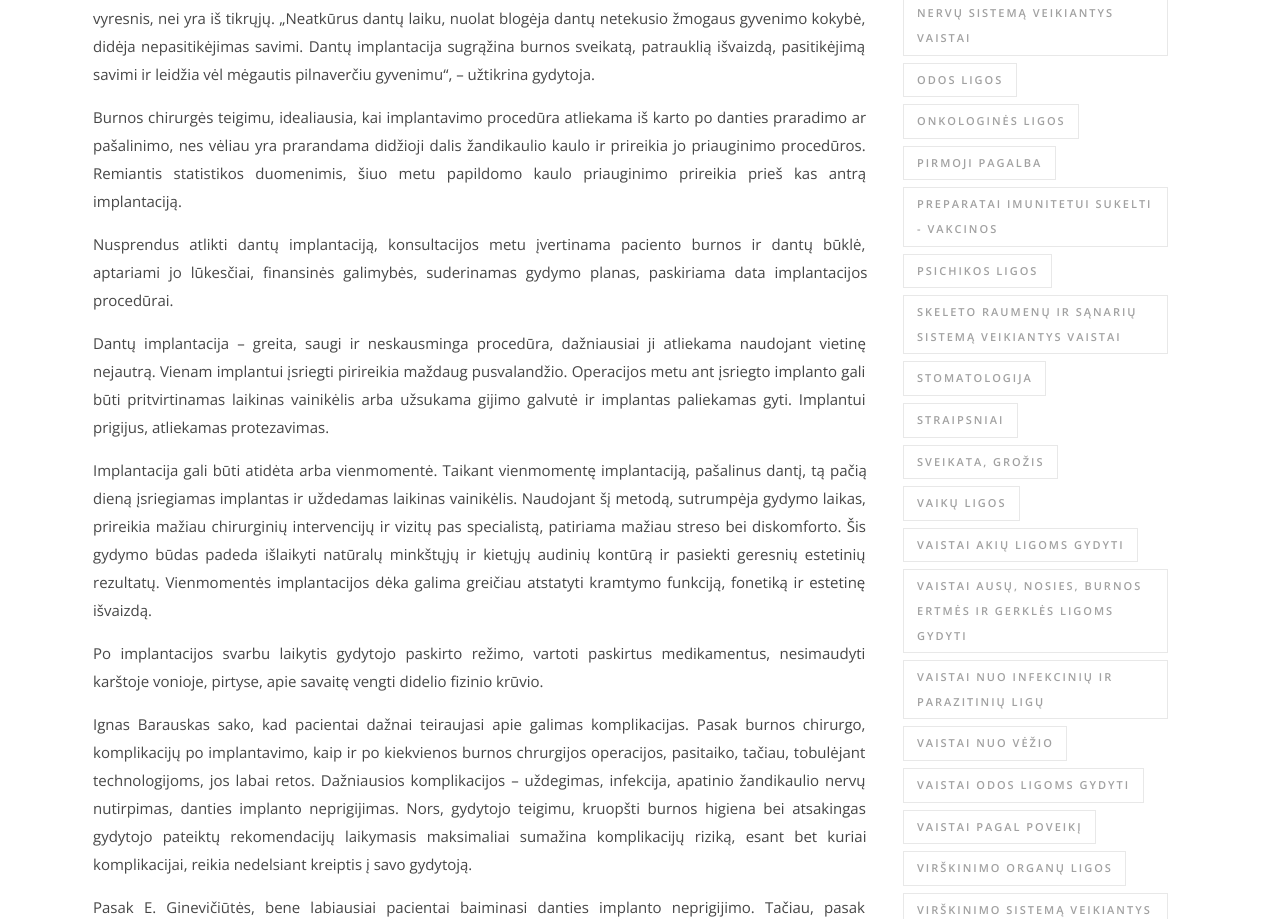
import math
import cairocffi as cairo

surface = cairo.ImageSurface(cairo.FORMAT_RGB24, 1265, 919)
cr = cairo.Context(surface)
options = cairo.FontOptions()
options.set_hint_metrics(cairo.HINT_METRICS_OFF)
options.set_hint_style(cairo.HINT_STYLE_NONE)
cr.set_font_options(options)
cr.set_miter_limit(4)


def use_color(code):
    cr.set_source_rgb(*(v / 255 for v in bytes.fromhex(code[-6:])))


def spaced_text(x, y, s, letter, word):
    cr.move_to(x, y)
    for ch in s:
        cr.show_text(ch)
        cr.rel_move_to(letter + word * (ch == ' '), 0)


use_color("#ffffff")
cr.paint()
cr.select_font_face("Open Sans")
cr.set_font_size(15)
use_color("#464646")
spaced_text(93, 24, "vyresnis, nei yra iš tikrųjų. „Neatkūrus dantų laiku, nuolat blogėja dantų netekusio žmogaus gyvenimo kokybė,", 0, 0.5)
spaced_text(93, 52, "didėja nepasitikėjimas savimi. Dantų implantacija sugrąžina burnos sveikatą, patrauklią išvaizdą, pasitikėjimą", 0, 1.5)
cr.move_to(93, 80)
cr.show_text("savimi ir leidžia vėl mėgautis pilnaverčiu gyvenimu“, – užtikrina gydytoja.")
spaced_text(93, 123, "Burnos chirurgės teigimu, idealiausia, kai implantavimo procedūra atliekama iš karto po danties praradimo ar", 0, 0.75)
spaced_text(93, 151, "pašalinimo, nes vėliau yra prarandama didžioji dalis žandikaulio kaulo ir prireikia jo priauginimo procedūros.", 0, 1.4)
spaced_text(93, 179, "Remiantis statistikos duomenimis, šiuo metu papildomo kaulo priauginimo prireikia prieš kas antrą", 0, 7.5)
cr.move_to(93, 207)
cr.show_text("implantaciją.")
spaced_text(93, 250, "Nusprendus atlikti dantų implantaciją, konsultacijos metu įvertinama paciento burnos ir dantų būklė,", 0, 6.25)
spaced_text(93, 278, "aptariami jo lūkesčiai, finansinės galimybės, suderinamas gydymo planas, paskiriama data implantacijos", 0, 5)
cr.move_to(93, 306)
cr.show_text("procedūrai.")
spaced_text(93, 349, "Dantų implantacija – greita, saugi ir neskausminga procedūra, dažniausiai ji atliekama naudojant vietinę", 0, 4.25)
spaced_text(93, 377, "nejautrą. Vienam implantui įsriegti pirireikia maždaug pusvalandžio. Operacijos metu ant įsriegto implanto gali", 0, 0.3)
spaced_text(93, 405, "būti pritvirtinamas laikinas vainikėlis arba užsukama gijimo galvutė ir implantas paliekamas gyti. Implantui", 0, 2.9)
cr.move_to(93, 433)
cr.show_text("prigijus, atliekamas protezavimas.")
spaced_text(93, 476, "Implantacija gali būti atidėta arba vienmomentė. Taikant vienmomentę implantaciją, pašalinus dantį, tą pačią", 0, 1.25)
spaced_text(93, 504, "dieną įsriegiamas implantas ir uždedamas laikinas vainikėlis. Naudojant šį metodą, sutrumpėja gydymo laikas,", 0, 0.6)
spaced_text(93, 532, "prireikia mažiau chirurginių intervencijų ir vizitų pas specialistą, patiriama mažiau streso bei diskomforto. Šis", 0, 1.4)
spaced_text(93, 560, "gydymo būdas padeda išlaikyti natūralų minkštųjų ir kietųjų audinių kontūrą ir pasiekti geresnių estetinių", 0, 3.1)
spaced_text(93, 588, "rezultatų. Vienmomentės implantacijos dėka galima greičiau atstatyti kramtymo funkciją, fonetiką ir estetinę", 0, 1.75)
cr.move_to(93, 616)
cr.show_text("išvaizdą.")
spaced_text(93, 659, "Po implantacijos svarbu laikytis gydytojo paskirto režimo, vartoti paskirtus medikamentus, nesimaudyti", 0, 5.5)
cr.move_to(93, 687)
cr.show_text("karštoje vonioje, pirtyse, apie savaitę vengti didelio fizinio krūvio.")
spaced_text(93, 730, "Ignas Barauskas sako, kad pacientai dažnai teiraujasi apie galimas komplikacijas. Pasak burnos chirurgo,", 0, 3.9)
spaced_text(93, 758, "komplikacijų po implantavimo, kaip ir po kiekvienos burnos chrurgijos operacijos, pasitaiko, tačiau, tobulėjant", 0, 0.8)
spaced_text(93, 786, "technologijoms, jos labai retos. Dažniausios komplikacijos – uždegimas, infekcija, apatinio žandikaulio nervų", 0, 2)
spaced_text(93, 814, "nutirpimas, danties implanto neprigijimas. Nors, gydytojo teigimu, kruopšti burnos higiena bei atsakingas", 0, 3.6)
spaced_text(93, 842, "gydytojo pateiktų rekomendacijų laikymasis maksimaliai sumažina komplikacijų riziką, esant bet kuriai", 0, 6.25)
cr.move_to(93, 870)
cr.show_text("komplikacijai, reikia nedelsiant kreiptis į savo gydytoją.")
spaced_text(93, 913, "Pasak E. Ginevičiūtės, bene labiausiai pacientai baiminasi danties implanto neprigijimo. Tačiau, pasak", 0, 6.25)
cr.rectangle(903.5, -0.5, 264, 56)
use_color("#e8e8e8")
cr.set_line_width(1)
cr.stroke()
cr.select_font_face("Open Sans SemiBold")
cr.set_font_size(11)
use_color("#a1a1a1")
spaced_text(917, 17, "NERVŲ SISTEMĄ VEIKIANTYS", 2, 0)
spaced_text(917, 42, "VAISTAI", 2, 0)
cr.rectangle(903.5, 63.5, 113, 33)
use_color("#e8e8e8")
cr.stroke()
use_color("#a1a1a1")
spaced_text(917, 84, "ODOS LIGOS", 2, 0)
cr.rectangle(903.5, 104.5, 175, 34)
use_color("#e8e8e8")
cr.stroke()
use_color("#a1a1a1")
spaced_text(917, 125, "ONKOLOGINĖS LIGOS", 2, 0)
cr.rectangle(903.5, 146.5, 152, 33)
use_color("#e8e8e8")
cr.stroke()
use_color("#a1a1a1")
spaced_text(917, 167, "PIRMOJI PAGALBA", 2, 0)
cr.rectangle(903.5, 187.5, 264, 59)
use_color("#e8e8e8")
cr.stroke()
use_color("#a1a1a1")
spaced_text(917, 208, "PREPARATAI IMUNITETUI SUKELTI", 2, 0)
spaced_text(917, 233, "- VAKCINOS", 2, 0)
cr.rectangle(903.5, 254.5, 148, 33)
use_color("#e8e8e8")
cr.stroke()
use_color("#a1a1a1")
spaced_text(917, 275, "PSICHIKOS LIGOS", 2, 0)
cr.rectangle(903.5, 295.5, 264, 58)
use_color("#e8e8e8")
cr.stroke()
use_color("#a1a1a1")
spaced_text(917, 316, "SKELETO RAUMENŲ IR SĄNARIŲ", 2, 0)
spaced_text(917, 341, "SISTEMĄ VEIKIANTYS VAISTAI", 2, 0)
cr.rectangle(903.5, 361.5, 142, 34)
use_color("#e8e8e8")
cr.stroke()
use_color("#a1a1a1")
spaced_text(917, 382, "STOMATOLOGIJA", 2, 0)
cr.rectangle(903.5, 403.5, 114, 34)
use_color("#e8e8e8")
cr.stroke()
use_color("#a1a1a1")
spaced_text(917, 424, "STRAIPSNIAI", 2, 0)
cr.rectangle(903.5, 445.5, 154, 33)
use_color("#e8e8e8")
cr.stroke()
use_color("#a1a1a1")
spaced_text(917, 466, "SVEIKATA, GROŽIS", 2, 0)
cr.rectangle(903.5, 486.5, 116, 34)
use_color("#e8e8e8")
cr.stroke()
use_color("#a1a1a1")
spaced_text(917, 507, "VAIKŲ LIGOS", 2, 0)
cr.rectangle(903.5, 528.5, 234, 33)
use_color("#e8e8e8")
cr.stroke()
use_color("#a1a1a1")
spaced_text(917, 549, "VAISTAI AKIŲ LIGOMS GYDYTI", 2, 0)
cr.rectangle(903.5, 569.5, 264, 83)
use_color("#e8e8e8")
cr.stroke()
use_color("#a1a1a1")
spaced_text(917, 590, "VAISTAI AUSŲ, NOSIES, BURNOS", 2, 0)
spaced_text(917, 615, "ERTMĖS IR GERKLĖS LIGOMS", 2, 0)
spaced_text(917, 640, "GYDYTI", 2, 0)
cr.rectangle(903.5, 660.5, 264, 58)
use_color("#e8e8e8")
cr.stroke()
use_color("#a1a1a1")
spaced_text(917, 681, "VAISTAI NUO INFEKCINIŲ IR", 2, 0)
spaced_text(917, 706, "PARAZITINIŲ LIGŲ", 2, 0)
cr.rectangle(903.5, 726.5, 163, 34)
use_color("#e8e8e8")
cr.stroke()
use_color("#a1a1a1")
spaced_text(917, 747, "VAISTAI NUO VĖŽIO", 2, 0)
cr.rectangle(903.5, 768.5, 240, 34)
use_color("#e8e8e8")
cr.stroke()
use_color("#a1a1a1")
spaced_text(917, 789, "VAISTAI ODOS LIGOMS GYDYTI", 2, 0)
cr.rectangle(903.5, 810.5, 192, 33)
use_color("#e8e8e8")
cr.stroke()
use_color("#a1a1a1")
spaced_text(917, 831, "VAISTAI PAGAL POVEIKĮ", 2, 0)
cr.rectangle(903.5, 851.5, 222, 34)
use_color("#e8e8e8")
cr.stroke()
use_color("#a1a1a1")
spaced_text(917, 872, "VIRŠKINIMO ORGANŲ LIGOS", 2, 0)
cr.rectangle(903.5, 893.5, 264, 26)
use_color("#e8e8e8")
cr.stroke()
use_color("#a1a1a1")
spaced_text(917, 914, "VIRŠKINIMO SISTEMĄ VEIKIANTYS", 2, 0)
surface.write_to_png("result.png")
